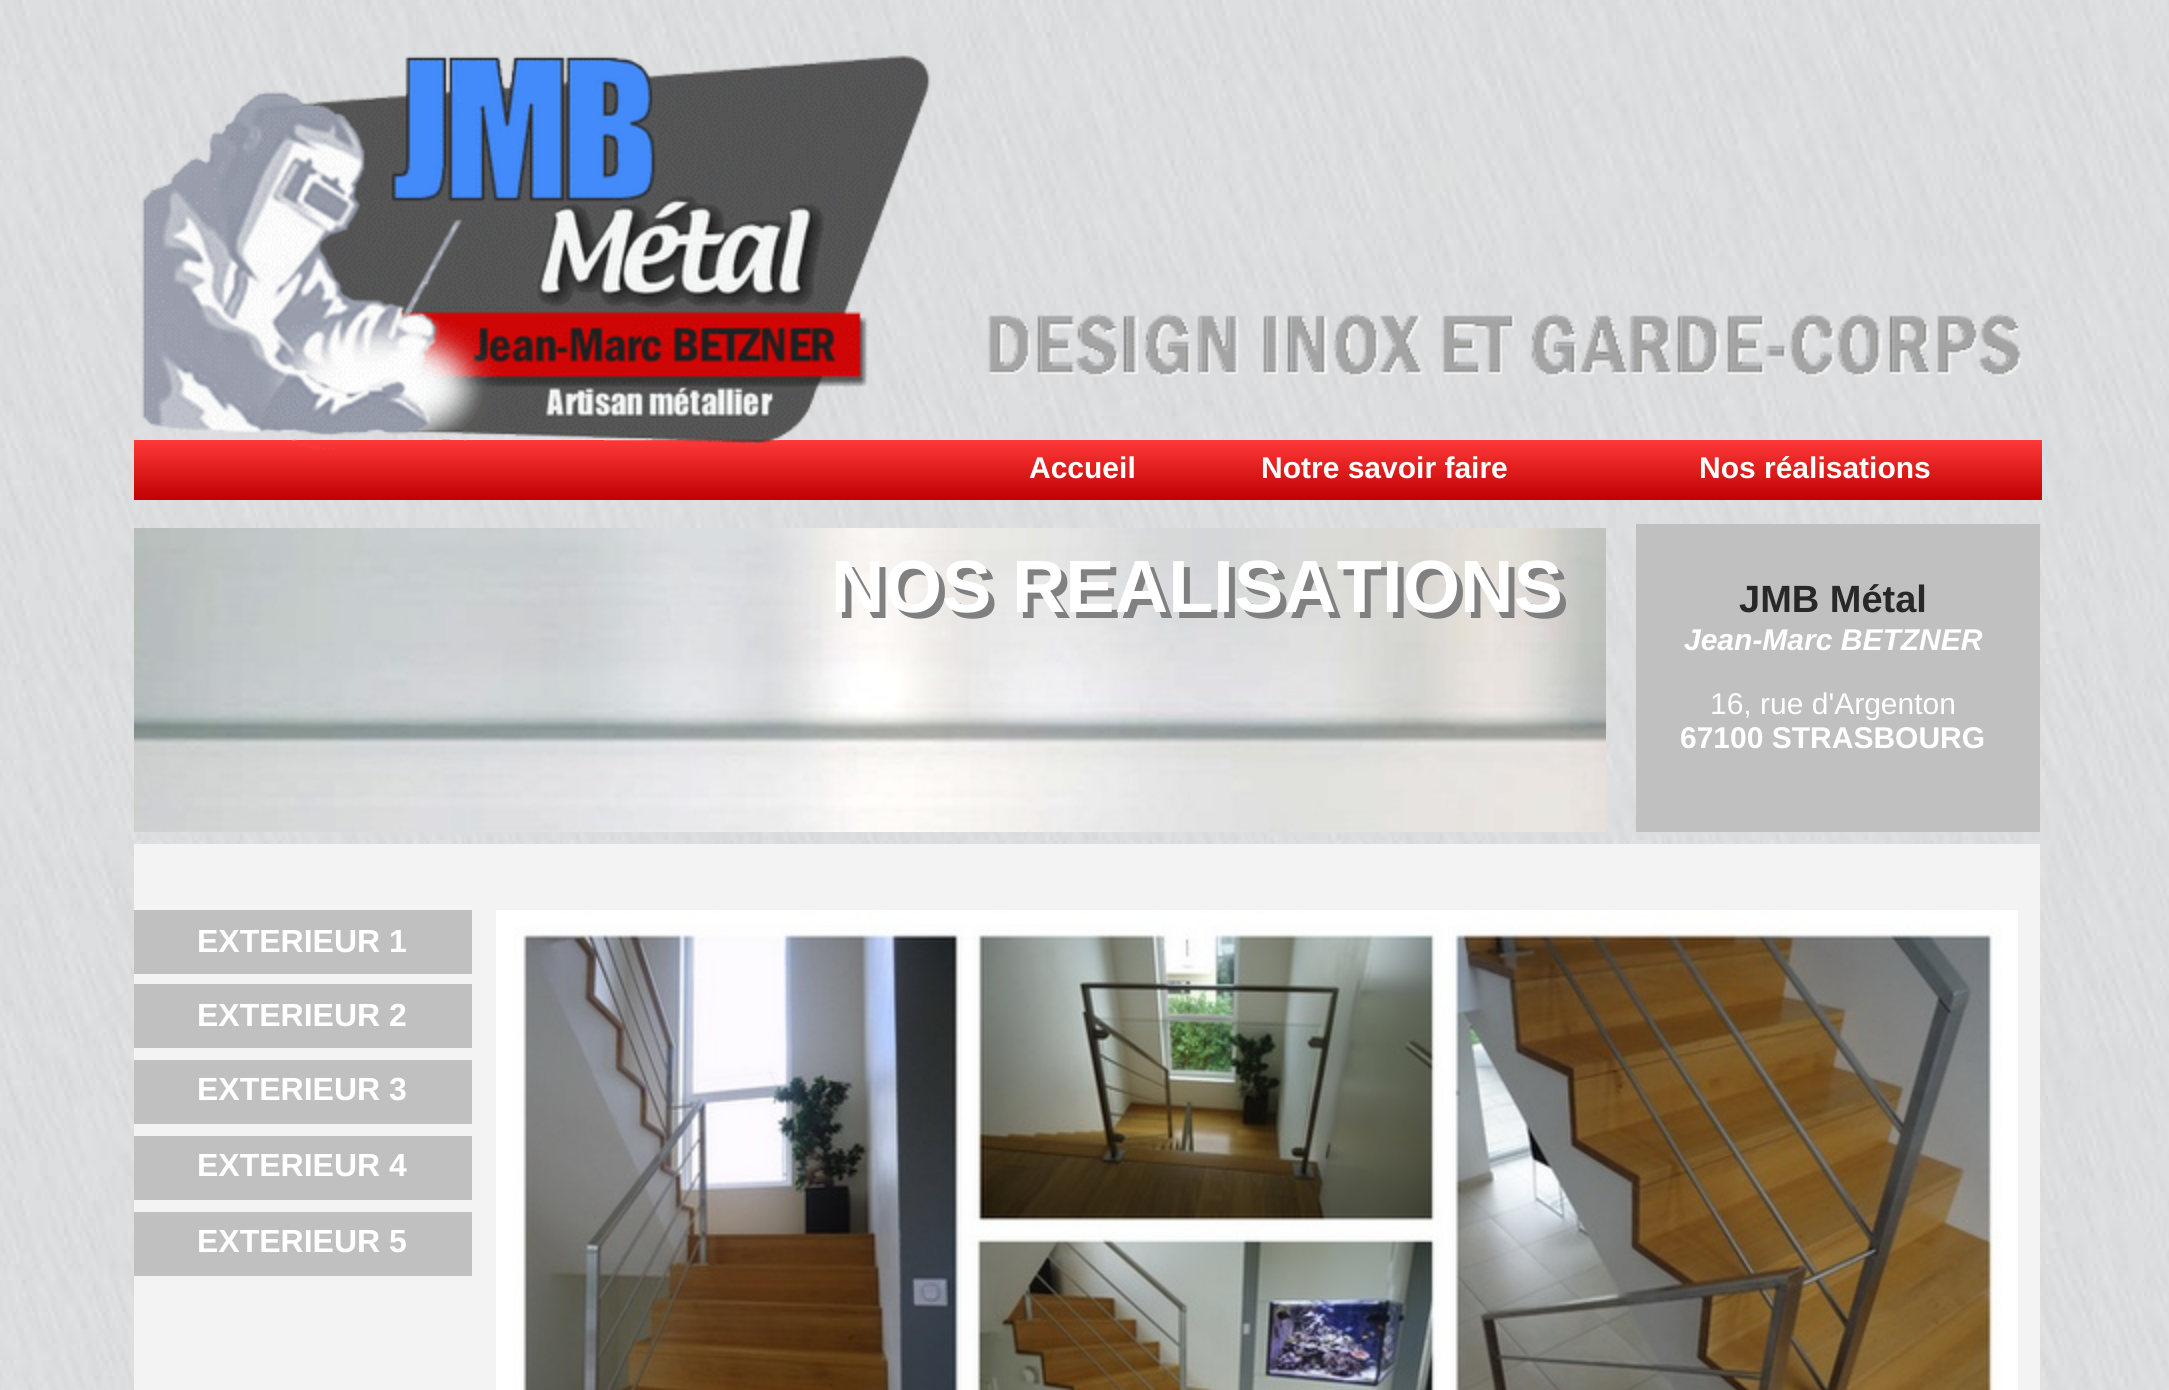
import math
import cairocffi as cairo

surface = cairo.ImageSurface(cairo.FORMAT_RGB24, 2169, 1390)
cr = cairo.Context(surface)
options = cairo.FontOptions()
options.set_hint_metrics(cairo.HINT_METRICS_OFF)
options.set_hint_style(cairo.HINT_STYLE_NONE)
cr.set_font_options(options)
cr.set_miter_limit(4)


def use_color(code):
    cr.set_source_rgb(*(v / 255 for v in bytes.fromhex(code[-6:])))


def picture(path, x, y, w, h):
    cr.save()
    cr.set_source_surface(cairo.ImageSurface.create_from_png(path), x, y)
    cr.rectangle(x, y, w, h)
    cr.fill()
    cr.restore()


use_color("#ffffff")
cr.paint()
picture("img1.png", 0, 0, 2169, 1390)
picture("img4.png", 134, 440, 1908, 60)
picture("img2.png", 141, 55, 790, 395)
picture("img3.png", 987, 313, 1035, 64)
cr.select_font_face("Liberation Sans", cairo.FONT_SLANT_NORMAL, cairo.FONT_WEIGHT_BOLD)
cr.set_font_size(30)
use_color("#ffffff")
cr.move_to(1029, 478)
cr.show_text("Accueil")
cr.move_to(1261, 478)
cr.show_text("Notre savoir faire")
cr.move_to(1699, 478)
cr.show_text("Nos réalisations")
picture("img5.png", 134, 528, 1472, 304)
use_color("#c0c0c0")
cr.rectangle(1636, 524, 404, 308)
cr.fill()
cr.set_font_size(74)
use_color("#808080")
cr.move_to(837, 618)
cr.show_text("NOS REALISATIONS")
use_color("#ffffff")
cr.move_to(831, 612)
cr.show_text("NOS REALISATIONS")
cr.set_font_size(38)
use_color("#282828")
cr.move_to(1739, 612)
cr.show_text("JMB Métal")
cr.select_font_face("Liberation Sans", cairo.FONT_SLANT_ITALIC, cairo.FONT_WEIGHT_BOLD)
cr.set_font_size(30)
use_color("#ffffff")
cr.move_to(1684, 650)
cr.show_text("Jean-Marc BETZNER")
cr.select_font_face("Liberation Sans")
cr.move_to(1710, 714)
cr.show_text("16, rue d'Argenton")
cr.select_font_face("Liberation Sans", cairo.FONT_SLANT_NORMAL, cairo.FONT_WEIGHT_BOLD)
cr.move_to(1680, 748)
cr.show_text("67100 STRASBOURG")
use_color("#f3f3f3")
cr.rectangle(134, 844, 1906, 546)
cr.fill()
use_color("#c0c0c0")
cr.rectangle(134, 910, 338, 64)
cr.fill()
picture("img6.png", 496, 910, 1522, 480)
cr.set_font_size(32)
use_color("#ffffff")
cr.move_to(197, 952)
cr.show_text("EXTERIEUR 1")
use_color("#c0c0c0")
cr.rectangle(134, 984, 338, 64)
cr.fill()
use_color("#ffffff")
cr.move_to(197, 1026)
cr.show_text("EXTERIEUR 2")
use_color("#c0c0c0")
cr.rectangle(134, 1060, 338, 64)
cr.fill()
use_color("#ffffff")
cr.move_to(197, 1100)
cr.show_text("EXTERIEUR 3")
use_color("#c0c0c0")
cr.rectangle(134, 1136, 338, 64)
cr.fill()
use_color("#ffffff")
cr.move_to(197, 1176)
cr.show_text("EXTERIEUR 4")
use_color("#c0c0c0")
cr.rectangle(134, 1212, 338, 64)
cr.fill()
use_color("#ffffff")
cr.move_to(197, 1252)
cr.show_text("EXTERIEUR 5")
surface.write_to_png("result.png")
